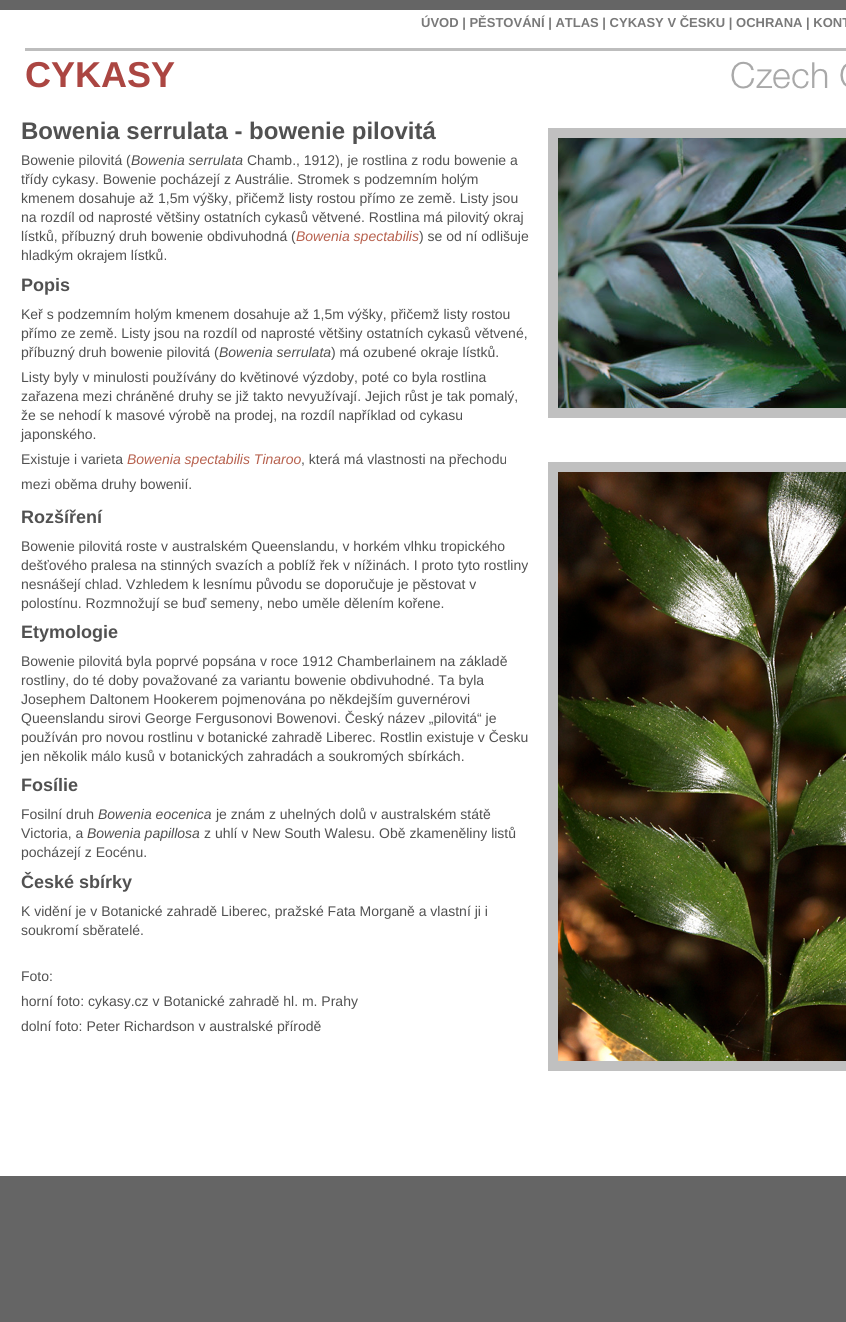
import math
import cairocffi as cairo

surface = cairo.ImageSurface(cairo.FORMAT_RGB24, 846, 1322)
cr = cairo.Context(surface)
options = cairo.FontOptions()
options.set_hint_metrics(cairo.HINT_METRICS_OFF)
options.set_hint_style(cairo.HINT_STYLE_NONE)
cr.set_font_options(options)
cr.set_miter_limit(4)


def use_color(code):
    cr.set_source_rgb(*(v / 255 for v in bytes.fromhex(code[-6:])))


def picture(path, x, y, w, h):
    cr.save()
    cr.set_source_surface(cairo.ImageSurface.create_from_png(path), x, y)
    cr.rectangle(x, y, w, h)
    cr.fill()
    cr.restore()


use_color("#656565")
cr.paint()
use_color("#ffffff")
cr.rectangle(0, 10, 846, 1166)
cr.fill()
cr.select_font_face("Liberation Sans", cairo.FONT_SLANT_NORMAL, cairo.FONT_WEIGHT_BOLD)
cr.set_font_size(13)
use_color("#797979")
cr.move_to(421, 27)
cr.show_text("ÚVOD | PĚSTOVÁNÍ | ATLAS | CYKASY V ČESKU | OCHRANA | KONT")
use_color("#bdbdbd")
cr.rectangle(25, 48, 821, 3)
cr.fill()
cr.set_font_size(36)
use_color("#ab4642")
cr.move_to(25, 87)
cr.show_text("CYKASY")
picture("img1.png", 731, 61, 115, 28)
cr.set_font_size(24)
use_color("#515151")
cr.move_to(21, 139)
cr.show_text("Bowenia serrulata - bowenie pilovitá")
use_color("#c0c0c0")
cr.rectangle(548, 128, 10, 280)
cr.fill()
cr.rectangle(558, 128, 288, 10)
cr.fill()
picture("img2.png", 558, 138, 288, 270)
cr.rectangle(548, 408, 298, 10)
cr.fill()
cr.select_font_face("Liberation Sans")
cr.set_font_size(14)
use_color("#515151")
cr.move_to(21, 165)
cr.show_text("Bowenie pilovitá (")
cr.select_font_face("Liberation Sans", cairo.FONT_SLANT_ITALIC)
cr.move_to(131, 165)
cr.show_text("Bowenia serrulata")
cr.select_font_face("Liberation Sans")
cr.move_to(247, 165)
cr.show_text("Chamb., 1912), je rostlina z rodu bowenie a")
cr.move_to(21, 184)
cr.show_text("třídy cykasy. Bowenie pocházejí z Austrálie. Stromek s podzemním holým")
cr.move_to(21, 203)
cr.show_text("kmenem dosahuje až 1,5m výšky, přičemž listy rostou přímo ze země. Listy jsou")
cr.move_to(21, 222)
cr.show_text("na rozdíl od naprosté většiny ostatních cykasů větvené. Rostlina má pilovitý okraj")
cr.move_to(21, 241)
cr.show_text("lístků, příbuzný druh bowenie obdivuhodná (")
cr.select_font_face("Liberation Sans", cairo.FONT_SLANT_ITALIC)
use_color("#b7614e")
cr.move_to(296, 241)
cr.show_text("Bowenia spectabilis")
cr.select_font_face("Liberation Sans")
use_color("#515151")
cr.move_to(419, 241)
cr.show_text(") se od ní odlišuje")
cr.move_to(21, 260)
cr.show_text("hladkým okrajem lístků.")
cr.select_font_face("Liberation Sans", cairo.FONT_SLANT_NORMAL, cairo.FONT_WEIGHT_BOLD)
cr.set_font_size(18)
cr.move_to(21, 291)
cr.show_text("Popis")
cr.select_font_face("Liberation Sans")
cr.set_font_size(14)
cr.move_to(21, 319)
cr.show_text("Keř s podzemním holým kmenem dosahuje až 1,5m výšky, přičemž listy rostou")
cr.move_to(21, 338)
cr.show_text("přímo ze země. Listy jsou na rozdíl od naprosté většiny ostatních cykasů větvené,")
cr.move_to(21, 357)
cr.show_text("příbuzný druh bowenie pilovitá (")
cr.select_font_face("Liberation Sans", cairo.FONT_SLANT_ITALIC)
cr.move_to(219, 357)
cr.show_text("Bowenia serrulata")
cr.select_font_face("Liberation Sans")
cr.move_to(331, 357)
cr.show_text(") má ozubené okraje lístků.")
cr.move_to(21, 382)
cr.show_text("Listy byly v minulosti používány do květinové výzdoby, poté co byla rostlina")
cr.move_to(21, 401)
cr.show_text("zařazena mezi chráněné druhy se již takto nevyužívají. Jejich růst je tak pomalý,")
cr.move_to(21, 420)
cr.show_text("že se nehodí k masové výrobě na prodej, na rozdíl například od cykasu")
cr.move_to(21, 439)
cr.show_text("japonského.")
cr.move_to(21, 464)
cr.show_text("Existuje i varieta")
cr.select_font_face("Liberation Sans", cairo.FONT_SLANT_ITALIC)
use_color("#b7614e")
cr.move_to(127, 464)
cr.show_text("Bowenia spectabilis Tinaroo")
cr.select_font_face("Liberation Sans")
use_color("#515151")
cr.move_to(301, 464)
cr.show_text(", která má vlastnosti na přechodu")
cr.move_to(21, 489)
cr.show_text("mezi oběma druhy bowenií.")
picture("img3.png", 548, 462, 298, 609)
cr.select_font_face("Liberation Sans", cairo.FONT_SLANT_NORMAL, cairo.FONT_WEIGHT_BOLD)
cr.set_font_size(18)
cr.move_to(21, 523)
cr.show_text("Rozšíření")
cr.select_font_face("Liberation Sans")
cr.set_font_size(14)
cr.move_to(21, 551)
cr.show_text("Bowenie pilovitá roste v australském Queenslandu, v horkém vlhku tropického")
cr.move_to(21, 570)
cr.show_text("dešťového pralesa na stinných svazích a poblíž řek v nížinách. I proto tyto rostliny")
cr.move_to(21, 589)
cr.show_text("nesnášejí chlad. Vzhledem k lesnímu původu se doporučuje je pěstovat v")
cr.move_to(21, 608)
cr.show_text("polostínu. Rozmnožují se buď semeny, nebo uměle dělením kořene.")
cr.select_font_face("Liberation Sans", cairo.FONT_SLANT_NORMAL, cairo.FONT_WEIGHT_BOLD)
cr.set_font_size(18)
cr.move_to(21, 638)
cr.show_text("Etymologie")
cr.select_font_face("Liberation Sans")
cr.set_font_size(14)
cr.move_to(21, 666)
cr.show_text("Bowenie pilovitá byla poprvé popsána v roce 1912 Chamberlainem na základě")
cr.move_to(21, 685)
cr.show_text("rostliny, do té doby považované za variantu bowenie obdivuhodné. Ta byla")
cr.move_to(21, 704)
cr.show_text("Josephem Daltonem Hookerem pojmenována po někdejším guvernérovi")
cr.move_to(21, 723)
cr.show_text("Queenslandu sirovi George Fergusonovi Bowenovi. Český název „pilovitá“ je")
cr.move_to(21, 742)
cr.show_text("používán pro novou rostlinu v botanické zahradě Liberec. Rostlin existuje v Česku")
cr.move_to(21, 761)
cr.show_text("jen několik málo kusů v botanických zahradách a soukromých sbírkách.")
cr.select_font_face("Liberation Sans", cairo.FONT_SLANT_NORMAL, cairo.FONT_WEIGHT_BOLD)
cr.set_font_size(18)
cr.move_to(21, 791)
cr.show_text("Fosílie")
cr.select_font_face("Liberation Sans")
cr.set_font_size(14)
cr.move_to(21, 819)
cr.show_text("Fosilní druh")
cr.select_font_face("Liberation Sans", cairo.FONT_SLANT_ITALIC)
cr.move_to(98, 819)
cr.show_text("Bowenia eocenica")
cr.select_font_face("Liberation Sans")
cr.move_to(216, 819)
cr.show_text("je znám z uhelných dolů v australském státě")
cr.move_to(21, 838)
cr.show_text("Victoria, a")
cr.select_font_face("Liberation Sans", cairo.FONT_SLANT_ITALIC)
cr.move_to(87, 838)
cr.show_text("Bowenia papillosa")
cr.select_font_face("Liberation Sans")
cr.move_to(204, 838)
cr.show_text("z uhlí v New South Walesu. Obě zkameněliny listů")
cr.move_to(21, 857)
cr.show_text("pocházejí z Eocénu.")
cr.select_font_face("Liberation Sans", cairo.FONT_SLANT_NORMAL, cairo.FONT_WEIGHT_BOLD)
cr.set_font_size(18)
cr.move_to(21, 888)
cr.show_text("České sbírky")
cr.select_font_face("Liberation Sans")
cr.set_font_size(14)
cr.move_to(21, 916)
cr.show_text("K vidění je v Botanické zahradě Liberec, pražské Fata Morganě a vlastní ji i")
cr.move_to(21, 935)
cr.show_text("soukromí sběratelé.")
cr.move_to(21, 981)
cr.show_text("Foto:")
cr.move_to(21, 1006)
cr.show_text("horní foto: cykasy.cz v Botanické zahradě hl. m. Prahy")
cr.move_to(21, 1031)
cr.show_text("dolní foto: Peter Richardson v australské přírodě")
surface.write_to_png("result.png")
